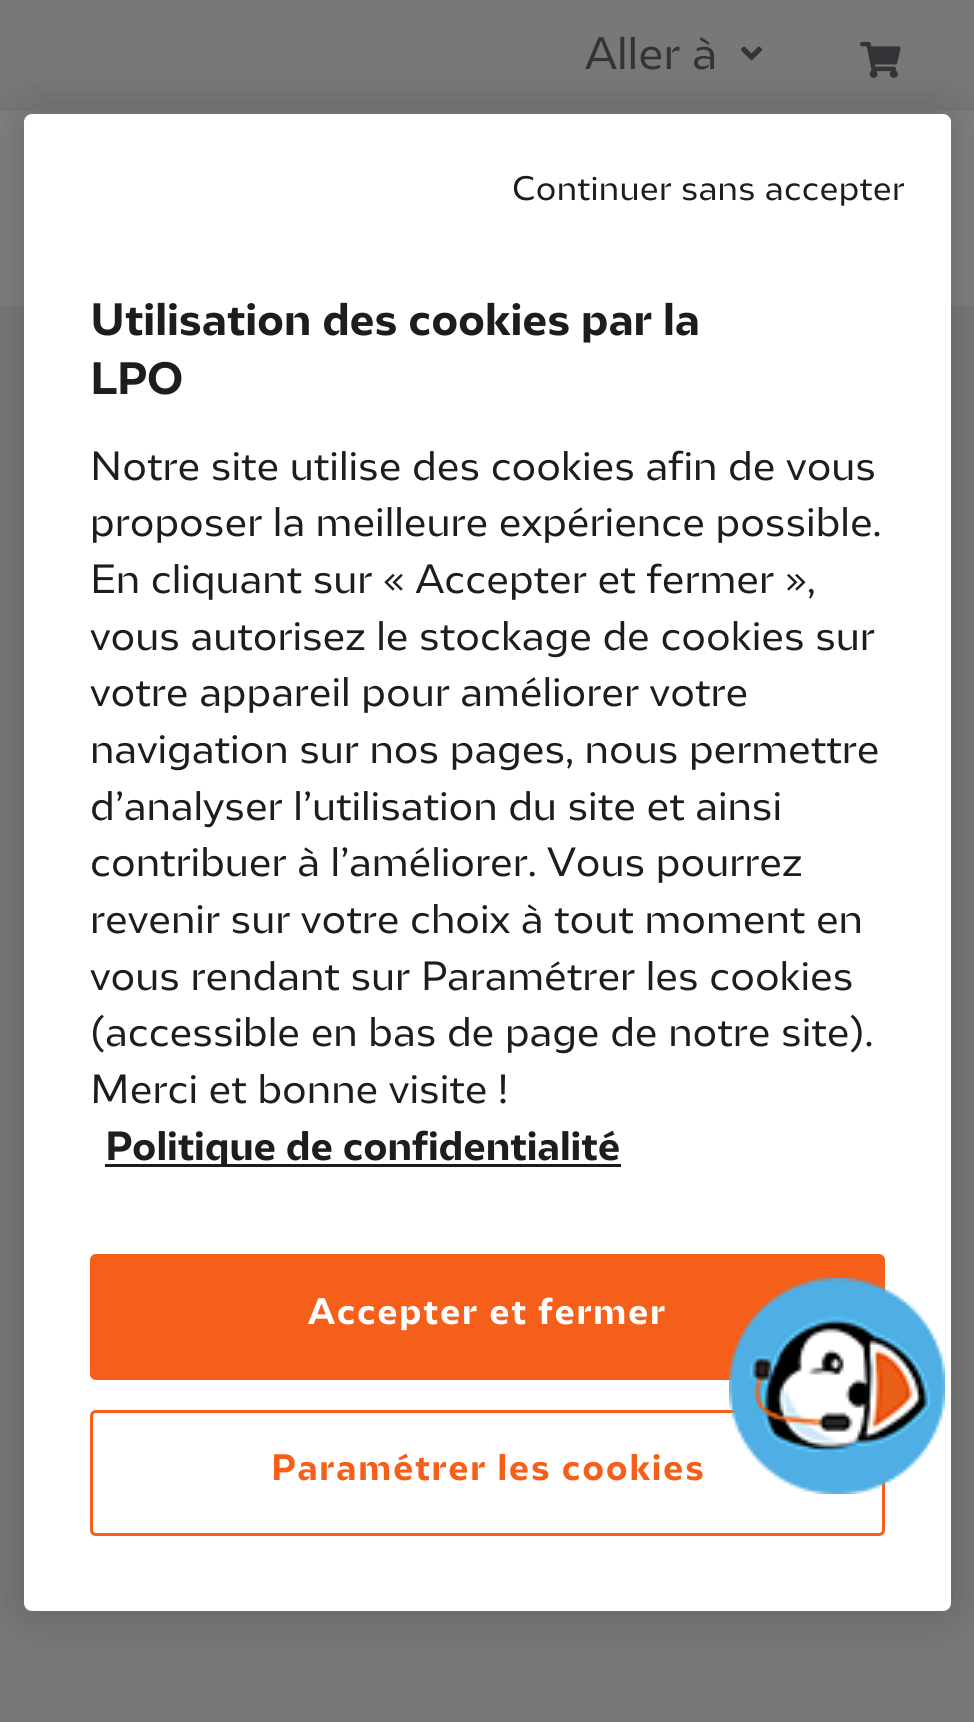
import math
import cairocffi as cairo

surface = cairo.ImageSurface(cairo.FORMAT_RGB24, 974, 1722)
cr = cairo.Context(surface)
options = cairo.FontOptions()
options.set_hint_metrics(cairo.HINT_METRICS_OFF)
options.set_hint_style(cairo.HINT_STYLE_NONE)
cr.set_font_options(options)
cr.set_miter_limit(4)


def use_color(code):
    cr.set_source_rgb(*(v / 255 for v in bytes.fromhex(code[-6:])))


def spaced_text(x, y, s, letter, word):
    cr.move_to(x, y)
    for ch in s:
        cr.show_text(ch)
        cr.rel_move_to(letter + word * (ch == ' '), 0)


def round_rect(x, y, w, h, r):
    cr.new_sub_path()
    for i, (u, v) in enumerate([(x + w - r, y + h - r), (x + r, y + h - r), (x + r, y + r), (x + w - r, y + r)]):
        cr.arc(u, v, r, i * math.pi / 2, (i + 1) * math.pi / 2)
    cr.close_path()


def shadow(x, y, w, h, r, blur, alpha):
    cr.push_group_with_content(cairo.CONTENT_ALPHA)
    cr.set_operator(cairo.OPERATOR_SOURCE)
    for i in range(15, -16, -2):
        e = blur * i / 6
        if min(w, h) + 2 * e > 0:
            cr.set_source_rgba(0, 0, 0, alpha * math.erfc((i - 1) / 8.5) / 2)
            round_rect(x - e, y - e, w + 2 * e, h + 2 * e, max(0, min(r + e + blur * .6, min(w, h) / 2 + e)))
            cr.fill()
    cr.mask(cr.pop_group())


def picture(path, x, y, w, h):
    cr.save()
    cr.set_source_surface(cairo.ImageSurface.create_from_png(path), x, y)
    cr.rectangle(x, y, w, h)
    cr.fill()
    cr.restore()


use_color("#808080")
cr.paint()
use_color("#787876")
cr.rectangle(0, 0, 974, 111)
cr.fill()
cr.select_font_face("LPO")
cr.set_font_size(42)
use_color("#323537")
cr.move_to(585, 69)
cr.show_text("Aller à")
picture("img1.png", 741, 46, 21, 15)
picture("img2.png", 860, 41, 41, 37)
use_color("#787876")
cr.rectangle(0, 306, 974, 1416)
cr.fill()
use_color("#000000")
shadow(24, 114, 927, 1497, 8, 27, 0.2)
use_color("#ffffff")
round_rect(24, 114, 927, 1497, 8)
cr.fill()
cr.set_font_size(31.5)
use_color("#1b1d1f")
spaced_text(512, 200, "Continuer sans accepter", 0.3, 0)
cr.select_font_face("LPO", cairo.FONT_SLANT_NORMAL, cairo.FONT_WEIGHT_BOLD)
cr.set_font_size(42)
cr.move_to(90, 335)
cr.show_text("Utilisation des cookies par la")
cr.move_to(90, 394)
cr.show_text("LPO")
cr.select_font_face("LPO")
cr.set_font_size(37.8)
cr.move_to(90, 480)
cr.show_text("Notre site utilise des cookies afin de vous")
cr.move_to(90, 536)
cr.show_text("proposer la meilleure expérience possible.")
cr.move_to(90, 593)
cr.show_text("En cliquant sur « Accepter et fermer »,")
cr.move_to(90, 650)
cr.show_text("vous autorisez le stockage de cookies sur")
cr.move_to(90, 706)
cr.show_text("votre appareil pour améliorer votre")
cr.move_to(90, 763)
cr.show_text("navigation sur nos pages, nous permettre")
cr.move_to(90, 820)
cr.show_text("d’analyser l’utilisation du site et ainsi")
cr.move_to(90, 876)
cr.show_text("contribuer à l’améliorer. Vous pourrez")
cr.move_to(90, 933)
cr.show_text("revenir sur votre choix à tout moment en")
cr.move_to(90, 990)
cr.show_text("vous rendant sur Paramétrer les cookies")
cr.move_to(90, 1046)
cr.show_text("(accessible en bas de page de notre site).")
cr.move_to(90, 1103)
cr.show_text("Merci et bonne visite !")
cr.rectangle(105, 1164, 516, 3)
cr.fill()
cr.select_font_face("LPO", cairo.FONT_SLANT_NORMAL, cairo.FONT_WEIGHT_BOLD)
cr.move_to(105, 1160)
cr.show_text("Politique de confidentialité")
use_color("#f55f19")
round_rect(91.5, 1255.5, 792, 123, 4.5)
cr.fill_preserve()
cr.set_line_width(3)
cr.stroke()
cr.set_font_size(34.1)
use_color("#ffffff")
spaced_text(308, 1324, "Accepter et fermer", 1.75, 0)
round_rect(91.5, 1411.5, 792, 123, 4.5)
use_color("#f55f19")
cr.stroke()
spaced_text(271, 1480, "Paramétrer les cookies", 1.75, 0)
picture("img3.png", 729, 1278, 216, 216)
surface.write_to_png("result.png")
